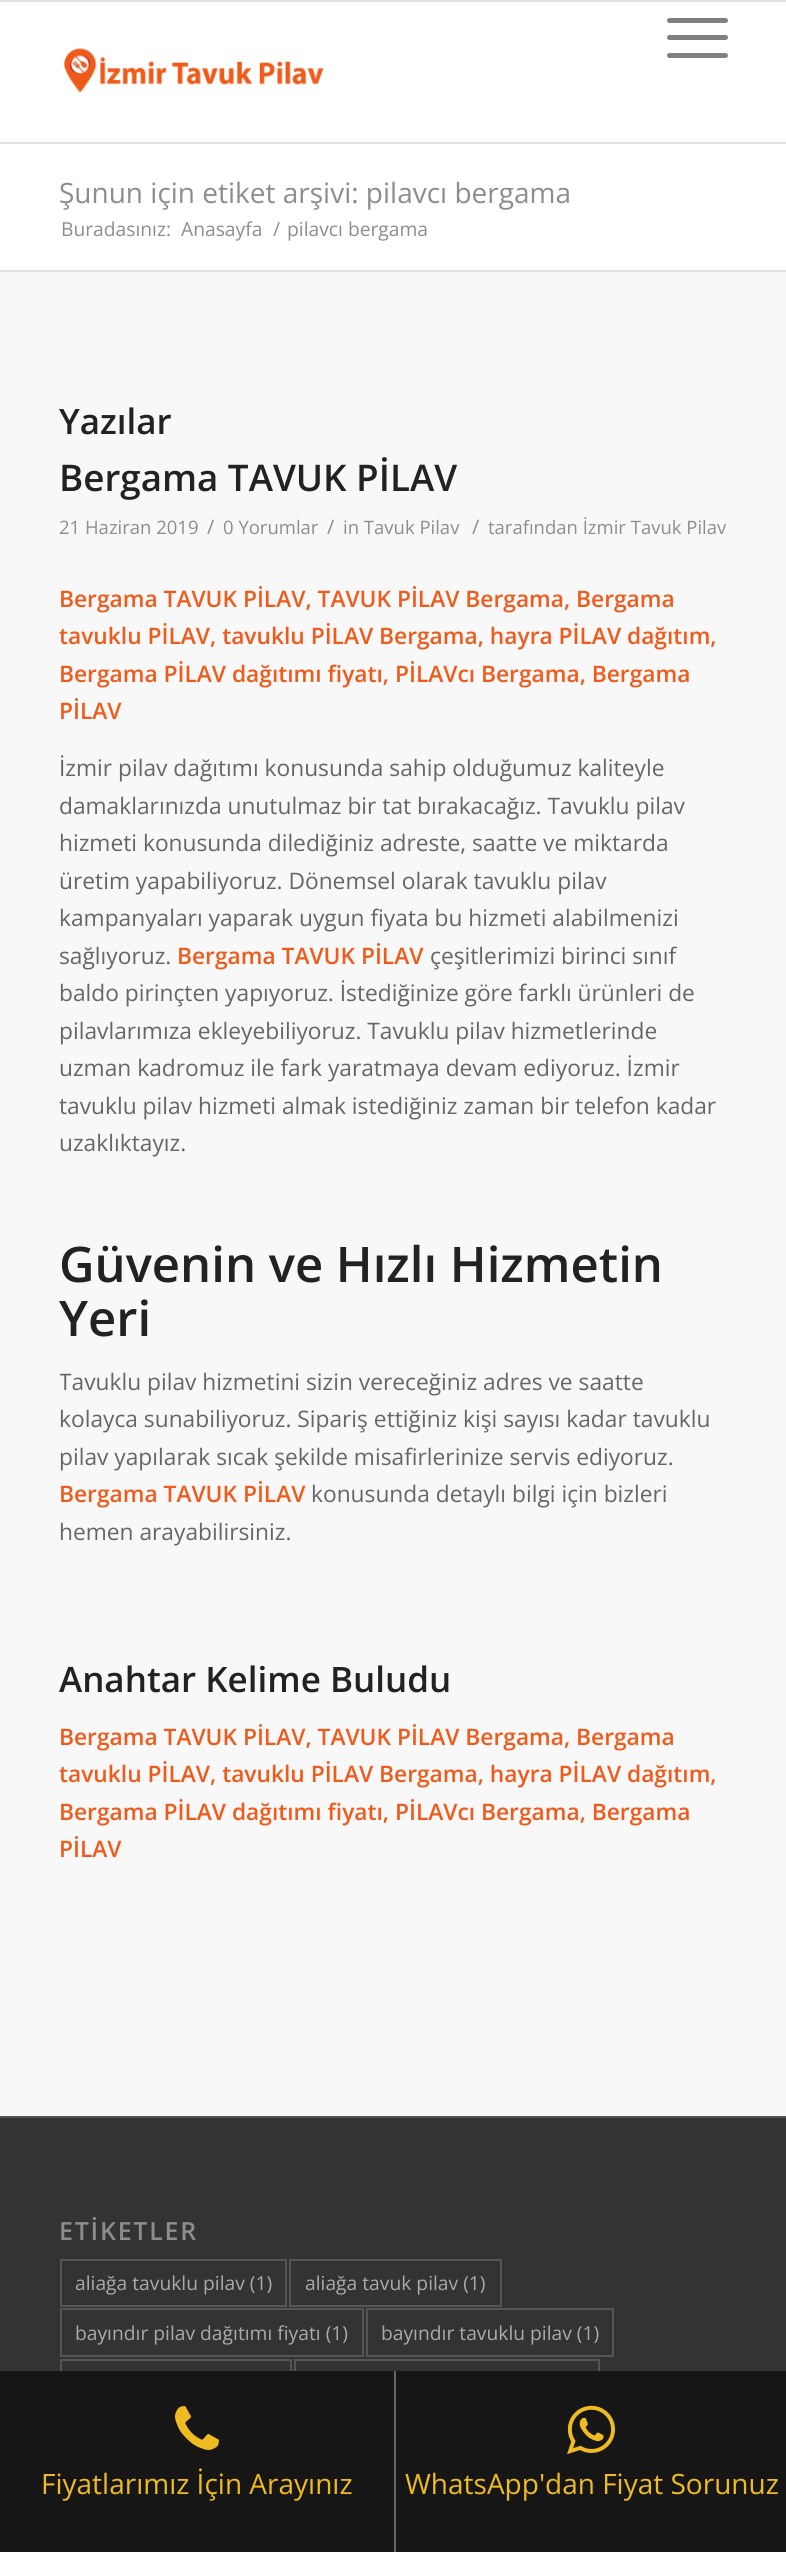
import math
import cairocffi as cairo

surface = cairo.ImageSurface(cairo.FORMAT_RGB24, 786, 2552)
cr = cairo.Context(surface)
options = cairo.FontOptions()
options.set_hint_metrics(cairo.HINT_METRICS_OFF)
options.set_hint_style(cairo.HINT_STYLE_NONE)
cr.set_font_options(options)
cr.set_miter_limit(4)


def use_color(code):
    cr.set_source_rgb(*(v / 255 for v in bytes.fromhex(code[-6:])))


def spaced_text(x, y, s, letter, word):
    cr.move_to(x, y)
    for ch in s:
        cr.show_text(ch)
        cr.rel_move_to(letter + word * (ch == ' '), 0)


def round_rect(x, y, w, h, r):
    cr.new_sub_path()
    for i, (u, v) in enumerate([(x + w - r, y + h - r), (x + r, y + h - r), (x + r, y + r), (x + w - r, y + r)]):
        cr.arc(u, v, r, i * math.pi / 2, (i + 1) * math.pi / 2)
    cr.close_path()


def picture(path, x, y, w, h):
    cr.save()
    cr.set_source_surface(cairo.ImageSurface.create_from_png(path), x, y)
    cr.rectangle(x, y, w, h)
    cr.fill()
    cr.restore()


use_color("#ffffff")
cr.paint()
use_color("#e1e1e1")
cr.rectangle(0, 0, 786, 2)
cr.fill()
cr.rectangle(0, 142, 786, 2)
cr.fill()
use_color("#808080")
round_rect(667, 35, 61, 5, 2.5)
cr.fill()
round_rect(667, 18, 61, 5, 2.5)
cr.fill()
round_rect(667, 53, 61, 5, 2.5)
cr.fill()
picture("img1.png", 64, 48, 260, 45)
cr.select_font_face("Open Sans")
cr.set_font_size(28)
use_color("#8d8d8d")
cr.move_to(59, 203)
cr.show_text("Şunun için etiket arşivi: pilavcı bergama")
cr.set_font_size(19.25)
cr.move_to(61, 236)
cr.show_text("Buradasınız:")
cr.move_to(181, 236)
cr.show_text("Anasayfa")
cr.move_to(273, 236)
cr.show_text("/")
cr.move_to(287, 236)
cr.show_text("pilavcı bergama")
use_color("#f8f8f8")
cr.rectangle(0, 272, 786, 1844)
cr.fill()
use_color("#e1e1e1")
cr.rectangle(0, 270, 786, 2)
cr.fill()
cr.select_font_face("Open Sans SemiBold")
cr.set_font_size(35)
use_color("#222222")
cr.move_to(59, 434)
cr.show_text("Yazılar")
cr.set_font_size(36.75)
cr.move_to(59, 491)
cr.show_text("Bergama TAVUK PİLAV")
cr.select_font_face("Open Sans")
cr.set_font_size(18.5)
use_color("#8d8d8d")
cr.move_to(59, 534)
cr.show_text("21 Haziran 2019")
cr.set_font_size(20)
cr.move_to(207, 534)
cr.show_text("/")
cr.set_font_size(18.5)
cr.move_to(223, 534)
cr.show_text("0 Yorumlar")
cr.set_font_size(20)
cr.move_to(327, 534)
cr.show_text("/")
cr.set_font_size(18.5)
cr.move_to(343, 534)
cr.show_text("in Tavuk Pilav")
cr.set_font_size(20)
cr.move_to(472, 534)
cr.show_text("/")
cr.set_font_size(18.5)
cr.move_to(488, 534)
cr.show_text("tarafından İzmir Tavuk Pilav")
cr.select_font_face("Open Sans SemiBold")
cr.set_font_size(22.75)
use_color("#f05a1a")
cr.move_to(59, 607)
cr.show_text("Bergama TAVUK PİLAV, TAVUK PİLAV Bergama, Bergama")
cr.move_to(59, 644)
cr.show_text("tavuklu PİLAV, tavuklu PİLAV Bergama, hayra PİLAV dağıtım,")
cr.move_to(59, 682)
cr.show_text("Bergama PİLAV dağıtımı fiyatı, PİLAVcı Bergama, Bergama")
cr.move_to(59, 719)
cr.show_text("PİLAV")
cr.select_font_face("Open Sans")
use_color("#666666")
cr.move_to(59, 776)
cr.show_text("İzmir pilav dağıtımı konusunda sahip olduğumuz kaliteyle")
cr.move_to(59, 814)
cr.show_text("damaklarınızda unutulmaz bir tat bırakacağız. Tavuklu pilav")
cr.move_to(59, 851)
cr.show_text("hizmeti konusunda dilediğiniz adreste, saatte ve miktarda")
cr.move_to(59, 889)
cr.show_text("üretim yapabiliyoruz. Dönemsel olarak tavuklu pilav")
cr.move_to(59, 926)
cr.show_text("kampanyaları yaparak uygun fiyata bu hizmeti alabilmenizi")
cr.move_to(59, 964)
cr.show_text("sağlıyoruz.")
cr.select_font_face("Open Sans SemiBold")
use_color("#f05a1a")
cr.move_to(177, 964)
cr.show_text("Bergama TAVUK PİLAV")
cr.select_font_face("Open Sans")
use_color("#666666")
cr.move_to(430, 964)
cr.show_text("çeşitlerimizi birinci sınıf")
cr.move_to(59, 1001)
cr.show_text("baldo pirinçten yapıyoruz. İstediğinize göre farklı ürünleri de")
cr.move_to(59, 1039)
cr.show_text("pilavlarımıza ekleyebiliyoruz. Tavuklu pilav hizmetlerinde")
cr.move_to(59, 1076)
cr.show_text("uzman kadromuz ile fark yaratmaya devam ediyoruz. İzmir")
cr.move_to(59, 1114)
cr.show_text("tavuklu pilav hizmeti almak istediğiniz zaman bir telefon kadar")
cr.move_to(59, 1151)
cr.show_text("uzaklıktayız.")
cr.select_font_face("Open Sans SemiBold")
cr.set_font_size(49)
use_color("#222222")
cr.move_to(59, 1282)
cr.show_text("Güvenin ve Hızlı Hizmetin")
cr.move_to(59, 1336)
cr.show_text("Yeri")
cr.save()
cr.rectangle(60, 455, 668, 1538)
cr.clip()
cr.select_font_face("Open Sans")
cr.set_font_size(22.75)
use_color("#666666")
cr.move_to(59, 1390)
cr.show_text("Tavuklu pilav hizmetini sizin vereceğiniz adres ve saatte")
cr.restore()
cr.select_font_face("Open Sans")
cr.set_font_size(22.75)
use_color("#666666")
cr.move_to(59, 1427)
cr.show_text("kolayca sunabiliyoruz. Sipariş ettiğiniz kişi sayısı kadar tavuklu")
cr.move_to(59, 1465)
cr.show_text("pilav yapılarak sıcak şekilde misafirlerinize servis ediyoruz.")
cr.select_font_face("Open Sans SemiBold")
use_color("#f05a1a")
cr.move_to(59, 1502)
cr.show_text("Bergama TAVUK PİLAV")
cr.select_font_face("Open Sans")
use_color("#666666")
cr.move_to(311, 1502)
cr.show_text("konusunda detaylı bilgi için bizleri")
cr.move_to(59, 1540)
cr.show_text("hemen arayabilirsiniz.")
cr.select_font_face("Open Sans SemiBold")
cr.set_font_size(35)
use_color("#222222")
cr.move_to(59, 1692)
cr.show_text("Anahtar Kelime Buludu")
cr.set_font_size(22.75)
use_color("#f05a1a")
cr.move_to(59, 1745)
cr.show_text("Bergama TAVUK PİLAV, TAVUK PİLAV Bergama, Bergama")
cr.move_to(59, 1782)
cr.show_text("tavuklu PİLAV, tavuklu PİLAV Bergama, hayra PİLAV dağıtım,")
cr.move_to(59, 1820)
cr.show_text("Bergama PİLAV dağıtımı fiyatı, PİLAVcı Bergama, Bergama")
cr.move_to(59, 1857)
cr.show_text("PİLAV")
use_color("#333333")
cr.rectangle(0, 2118, 786, 253)
cr.fill()
use_color("#555555")
cr.rectangle(0, 2116, 786, 2)
cr.fill()
cr.set_font_size(25)
use_color("#8d8d8d")
spaced_text(59, 2240, "ETİKETLER", 1.75, 0)
cr.rectangle(61, 2260, 225, 46)
use_color("#555555")
cr.stroke()
cr.select_font_face("Open Sans")
cr.set_font_size(19.25)
use_color("#aaaaaa")
cr.move_to(75, 2290)
cr.show_text("aliağa tavuklu pilav (1)")
cr.rectangle(290, 2260, 211, 46)
use_color("#555555")
cr.stroke()
use_color("#aaaaaa")
cr.move_to(305, 2290)
cr.show_text("aliağa tavuk pilav (1)")
cr.rectangle(61, 2309, 302, 47)
use_color("#555555")
cr.stroke()
use_color("#aaaaaa")
cr.move_to(75, 2340)
cr.show_text("bayındır pilav dağıtımı fiyatı (1)")
cr.rectangle(367, 2309, 246, 47)
use_color("#555555")
cr.stroke()
use_color("#aaaaaa")
cr.move_to(381, 2340)
cr.show_text("bayındır tavuklu pilav (1)")
cr.rectangle(61, 2360, 230, 45)
use_color("#555555")
cr.stroke()
cr.rectangle(295, 2360, 304, 45)
cr.stroke()
use_color("#171616")
cr.rectangle(0, 2371, 786, 181)
cr.fill()
picture("img2.png", 175, 2406, 44, 44)
cr.set_font_size(28)
use_color("#efbb20")
cr.move_to(41, 2494)
cr.show_text("Fiyatlarımız İçin Arayınız")
use_color("#666666")
cr.rectangle(394, 2371, 2, 181)
cr.fill()
picture("img3.png", 567, 2405, 48, 50)
use_color("#efbb20")
cr.move_to(405, 2494)
cr.show_text("WhatsApp'dan Fiyat Sorunuz")
surface.write_to_png("result.png")
